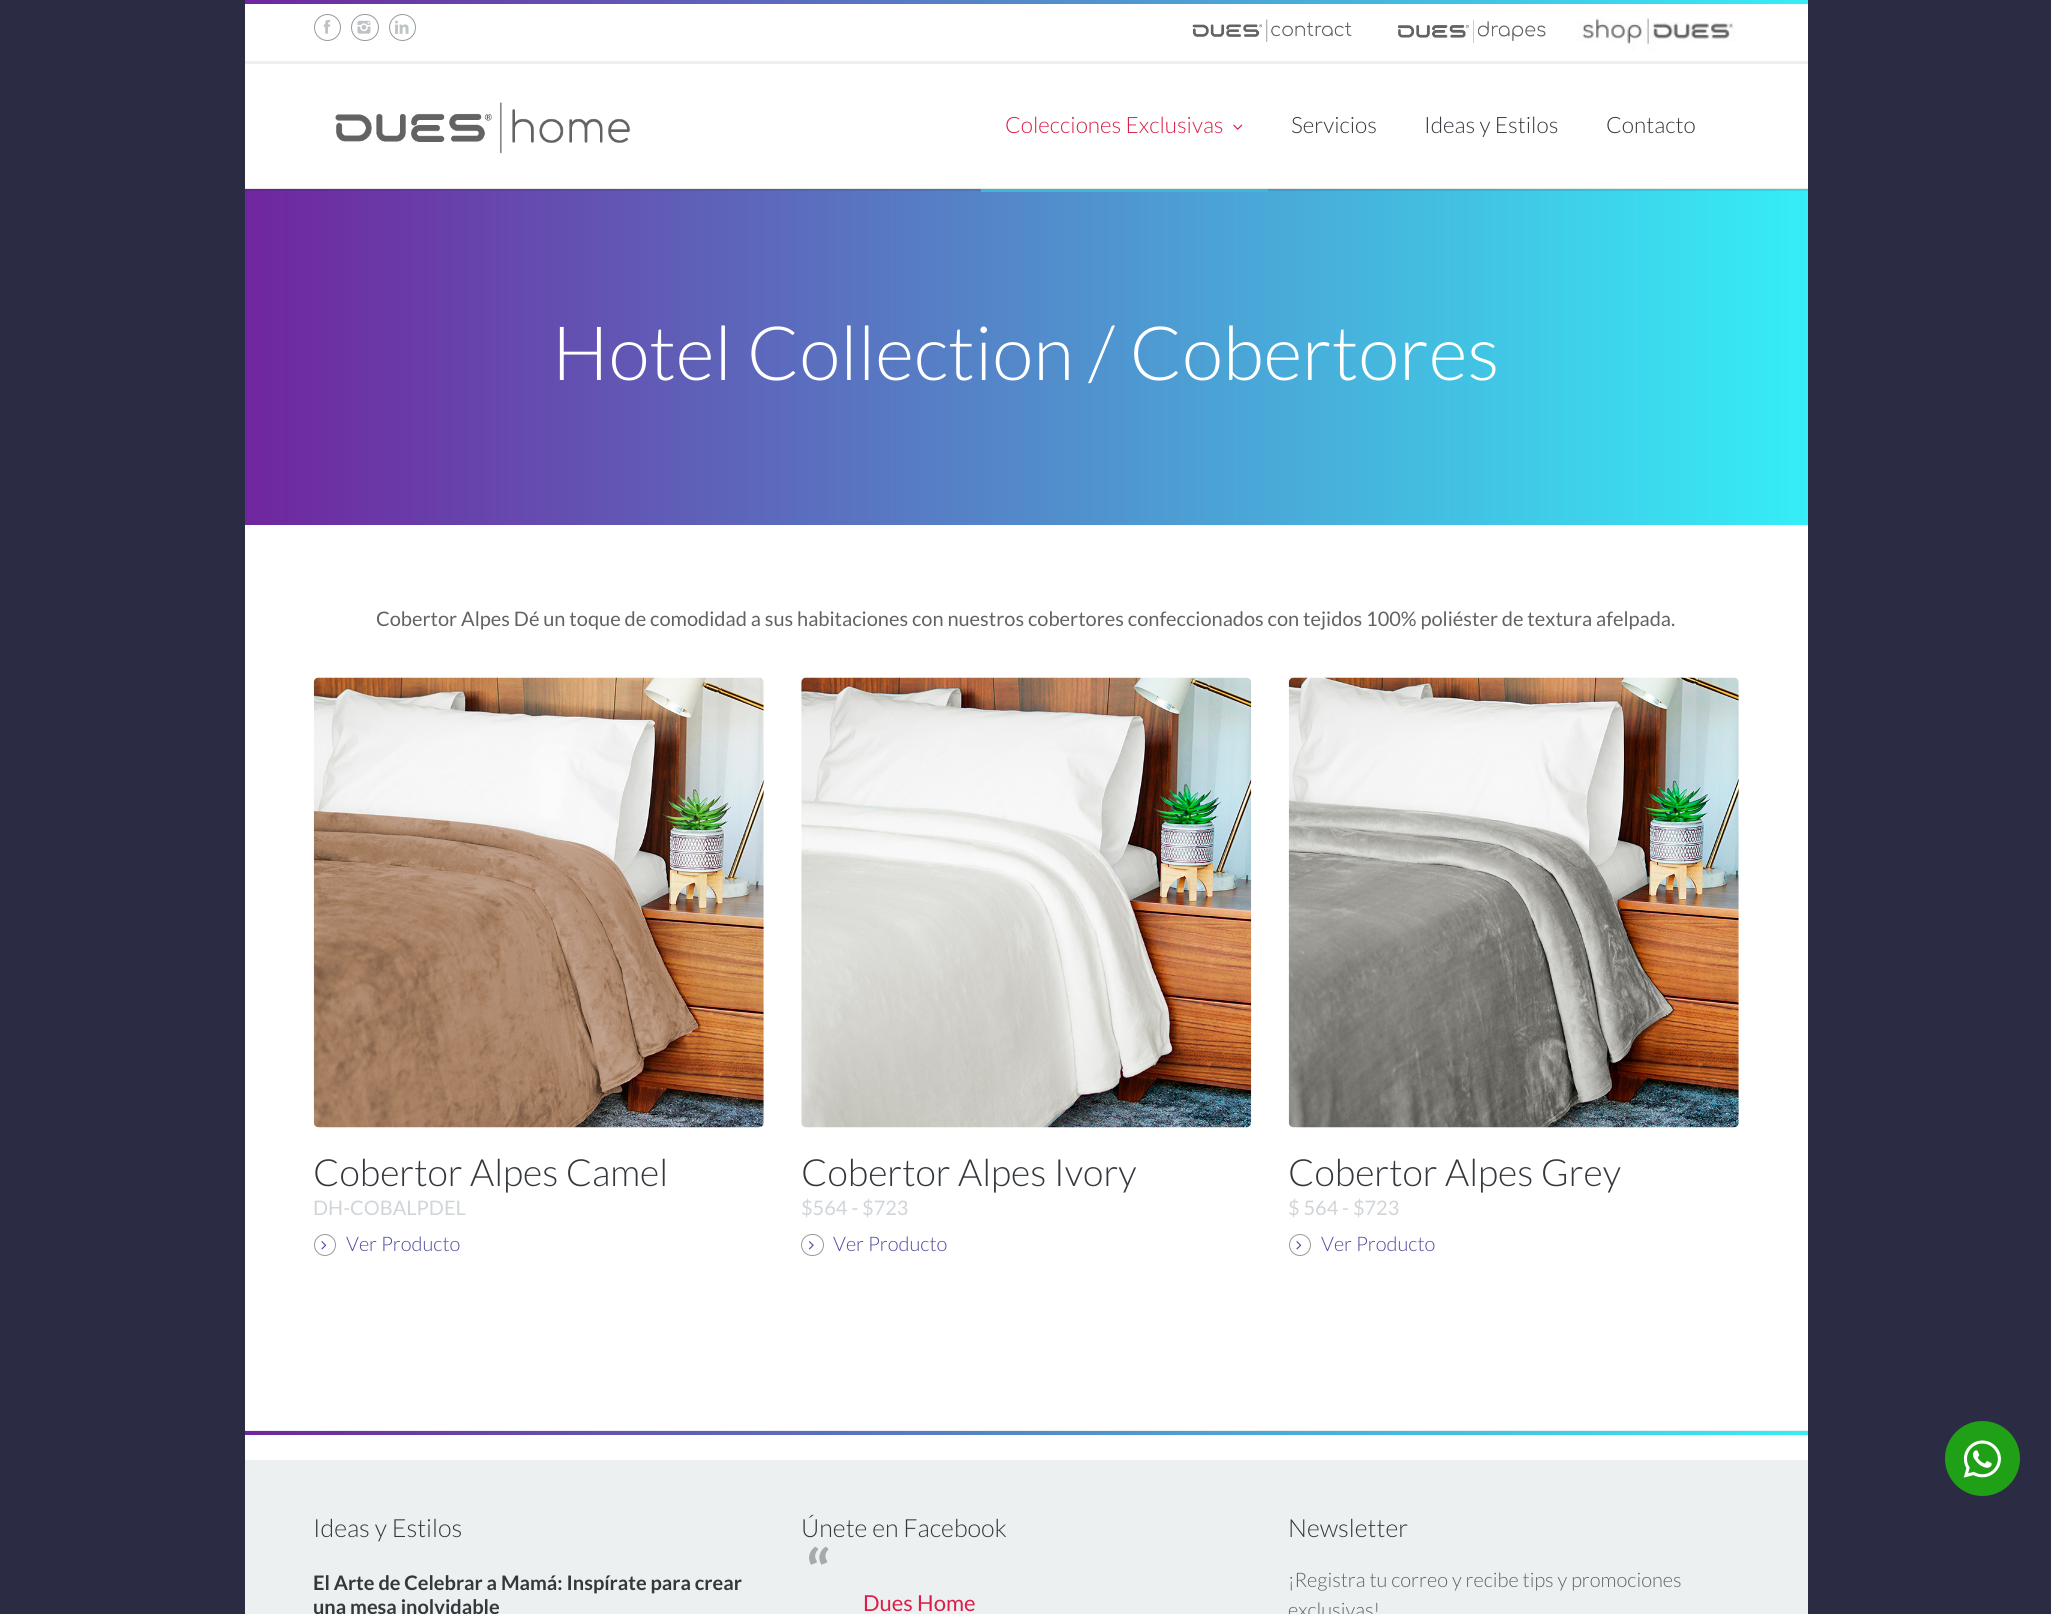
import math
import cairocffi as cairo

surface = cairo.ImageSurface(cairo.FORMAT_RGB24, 2051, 1614)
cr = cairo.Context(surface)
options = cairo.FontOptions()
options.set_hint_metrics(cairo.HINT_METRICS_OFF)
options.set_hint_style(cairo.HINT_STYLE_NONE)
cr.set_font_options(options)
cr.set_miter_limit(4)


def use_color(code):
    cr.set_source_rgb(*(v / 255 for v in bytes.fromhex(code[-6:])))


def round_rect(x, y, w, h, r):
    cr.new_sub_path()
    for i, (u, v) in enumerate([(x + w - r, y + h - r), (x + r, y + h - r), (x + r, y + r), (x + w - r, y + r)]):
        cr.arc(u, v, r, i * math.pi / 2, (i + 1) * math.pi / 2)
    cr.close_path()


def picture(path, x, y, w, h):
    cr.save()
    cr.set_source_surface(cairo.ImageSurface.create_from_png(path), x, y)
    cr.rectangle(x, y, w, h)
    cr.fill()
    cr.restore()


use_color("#2c2b44")
cr.paint()
use_color("#ffffff")
cr.rectangle(245, 4, 1563, 1456)
cr.fill()
use_color("#e8e8e8")
cr.rectangle(245, 188, 1563, 1)
cr.fill()
gradient = cairo.LinearGradient(245, 1.9, 1808, 1.9)
gradient.add_color_stop_rgba(0, 0.439, 0.149, 0.624, 1)
gradient.add_color_stop_rgba(1, 0.208, 0.933, 0.965, 1)
cr.set_source(gradient)
cr.rectangle(245, 0, 1563, 4)
cr.fill()
cr.arc(327.5, 27.5, 13, 0, 2 * math.pi)
use_color("#999999")
cr.set_line_width(1)
cr.stroke()
picture("img1.png", 323, 19, 8, 15)
round_rect(351.5, 14.5, 27, 26, 13)
cr.stroke()
picture("img2.png", 357, 20, 14, 14)
cr.arc(402.5, 27.5, 13, 0, 2 * math.pi)
cr.stroke()
picture("img3.png", 395, 20, 14, 14)
picture("img4.png", 1192, 19, 160, 23)
picture("img5.png", 1397, 20, 149, 23)
picture("img6.png", 1577, 17, 159, 34)
use_color("#ecf0f1")
cr.rectangle(245, 62, 1563, 2)
cr.fill()
use_color("#eeeeee")
cr.rectangle(245, 61, 1563, 1)
cr.fill()
picture("img7.png", 335, 102, 295, 52)
cr.select_font_face("Lato Light")
cr.set_font_size(22.5)
use_color("#da1f4b")
cr.move_to(1005, 133)
cr.show_text("Colecciones Exclusivas")
picture("img8.png", 1233, 124, 10, 6)
gradient = cairo.LinearGradient(245, 357, 1808, 357)
gradient.add_color_stop_rgba(0, 0.439, 0.149, 0.624, 1)
gradient.add_color_stop_rgba(1, 0.208, 0.933, 0.965, 1)
cr.set_source(gradient)
cr.rectangle(245, 191, 1563, 334)
cr.fill()
gradient = cairo.LinearGradient(245, 357, 1808, 357)
gradient.add_color_stop_rgba(0, 0.4, 0.137, 0.569, 1)
gradient.add_color_stop_rgba(1, 0.188, 0.851, 0.878, 1)
cr.set_source(gradient)
cr.rectangle(245, 189, 1563, 2)
cr.fill()
use_color("#3fb8d6")
cr.rectangle(981, 189, 287, 3)
cr.fill()
use_color("#34383d")
cr.move_to(1291, 133)
cr.show_text("Servicios")
cr.move_to(1424, 133)
cr.show_text("Ideas y Estilos")
cr.move_to(1606, 133)
cr.show_text("Contacto")
cr.set_font_size(75)
use_color("#ffffff")
cr.move_to(552, 380)
cr.show_text("Hotel Collection / Cobertores")
cr.select_font_face("Lato")
cr.set_font_size(20)
use_color("#606366")
cr.move_to(376, 626)
cr.show_text("Cobertor Alpes Dé un toque de comodidad a sus habitaciones con nuestros cobertores confeccionados con tejidos 100% poliéster de textura afelpada.")
picture("img9.png", 313, 677, 451, 451)
cr.select_font_face("Lato Light")
cr.set_font_size(37.5)
use_color("#34383d")
cr.move_to(313, 1186)
cr.show_text("Cobertor Alpes Camel")
cr.select_font_face("Lato")
cr.set_font_size(20)
use_color("#d1d5d8")
cr.move_to(313, 1215)
cr.show_text("DH-COBALPDEL")
cr.new_path()
cr.arc(325, 1245, 10.5, 0, 2 * math.pi)
use_color("#999999")
cr.stroke()
picture("img10.png", 321, 1241, 6, 9)
cr.select_font_face("Lato Light")
use_color("#4e4ca0")
cr.move_to(346, 1251)
cr.show_text("Ver Producto")
picture("img11.png", 801, 677, 451, 451)
cr.set_font_size(37.5)
use_color("#34383d")
cr.move_to(801, 1186)
cr.show_text("Cobertor Alpes Ivory")
cr.select_font_face("Lato")
cr.set_font_size(20)
use_color("#d1d5d8")
cr.move_to(801, 1215)
cr.show_text("$564 - $723")
round_rect(801.5, 1234.5, 22, 21, 10.5)
use_color("#999999")
cr.stroke()
picture("img12.png", 808, 1241, 6, 9)
cr.select_font_face("Lato Light")
use_color("#4e4ca0")
cr.move_to(833, 1251)
cr.show_text("Ver Producto")
picture("img13.png", 1288, 677, 451, 451)
cr.set_font_size(37.5)
use_color("#34383d")
cr.move_to(1288, 1186)
cr.show_text("Cobertor Alpes Grey")
cr.select_font_face("Lato")
cr.set_font_size(20)
use_color("#d1d5d8")
cr.move_to(1288, 1215)
cr.show_text("$ 564 - $723")
cr.new_path()
cr.arc(1300, 1245, 10.5, 0, 2 * math.pi)
use_color("#999999")
cr.stroke()
picture("img10.png", 1296, 1241, 6, 9)
cr.select_font_face("Lato Light")
use_color("#4e4ca0")
cr.move_to(1321, 1251)
cr.show_text("Ver Producto")
gradient = cairo.LinearGradient(245, 1433, 1808, 1433)
gradient.add_color_stop_rgba(0, 0.439, 0.149, 0.624, 1)
gradient.add_color_stop_rgba(1, 0.208, 0.933, 0.965, 1)
cr.set_source(gradient)
cr.rectangle(245, 1431, 1563, 4)
cr.fill()
use_color("#eeeeee")
cr.rectangle(245, 1430, 1563, 1)
cr.fill()
use_color("#20a016")
cr.arc(1982.5, 1458.5, 37.5, 0, 2 * math.pi)
cr.fill()
picture("img14.png", 1963, 1440, 38, 38)
use_color("#ecf0f1")
cr.rectangle(245, 1460, 1563, 154)
cr.fill()
cr.set_font_size(25)
use_color("#34383d")
cr.move_to(313, 1537)
cr.show_text("Ideas y Estilos")
cr.select_font_face("Lato", cairo.FONT_SLANT_NORMAL, cairo.FONT_WEIGHT_BOLD)
cr.set_font_size(20)
cr.move_to(313, 1590)
cr.show_text("El Arte de Celebrar a Mamá: Inspírate para crear")
cr.move_to(313, 1614)
cr.show_text("una mesa inolvidable")
cr.select_font_face("Lato Light")
cr.set_font_size(25)
cr.move_to(801, 1537)
cr.show_text("Únete en Facebook")
cr.select_font_face("Lato", cairo.FONT_SLANT_NORMAL, cairo.FONT_WEIGHT_BOLD)
cr.set_font_size(62)
use_color("#a6aaac")
cr.move_to(806, 1595)
cr.show_text("“")
cr.select_font_face("Lato")
cr.set_font_size(22)
use_color("#da1f4b")
cr.move_to(863, 1611)
cr.show_text("Dues Home")
cr.select_font_face("Lato Light")
cr.set_font_size(25)
use_color("#34383d")
cr.move_to(1288, 1537)
cr.show_text("Newsletter")
cr.set_font_size(20)
use_color("#606366")
cr.move_to(1288, 1587)
cr.show_text("¡Registra tu correo y recibe tips y promociones")
cr.move_to(1288, 1617)
cr.show_text("exclusivas!")
surface.write_to_png("result.png")
